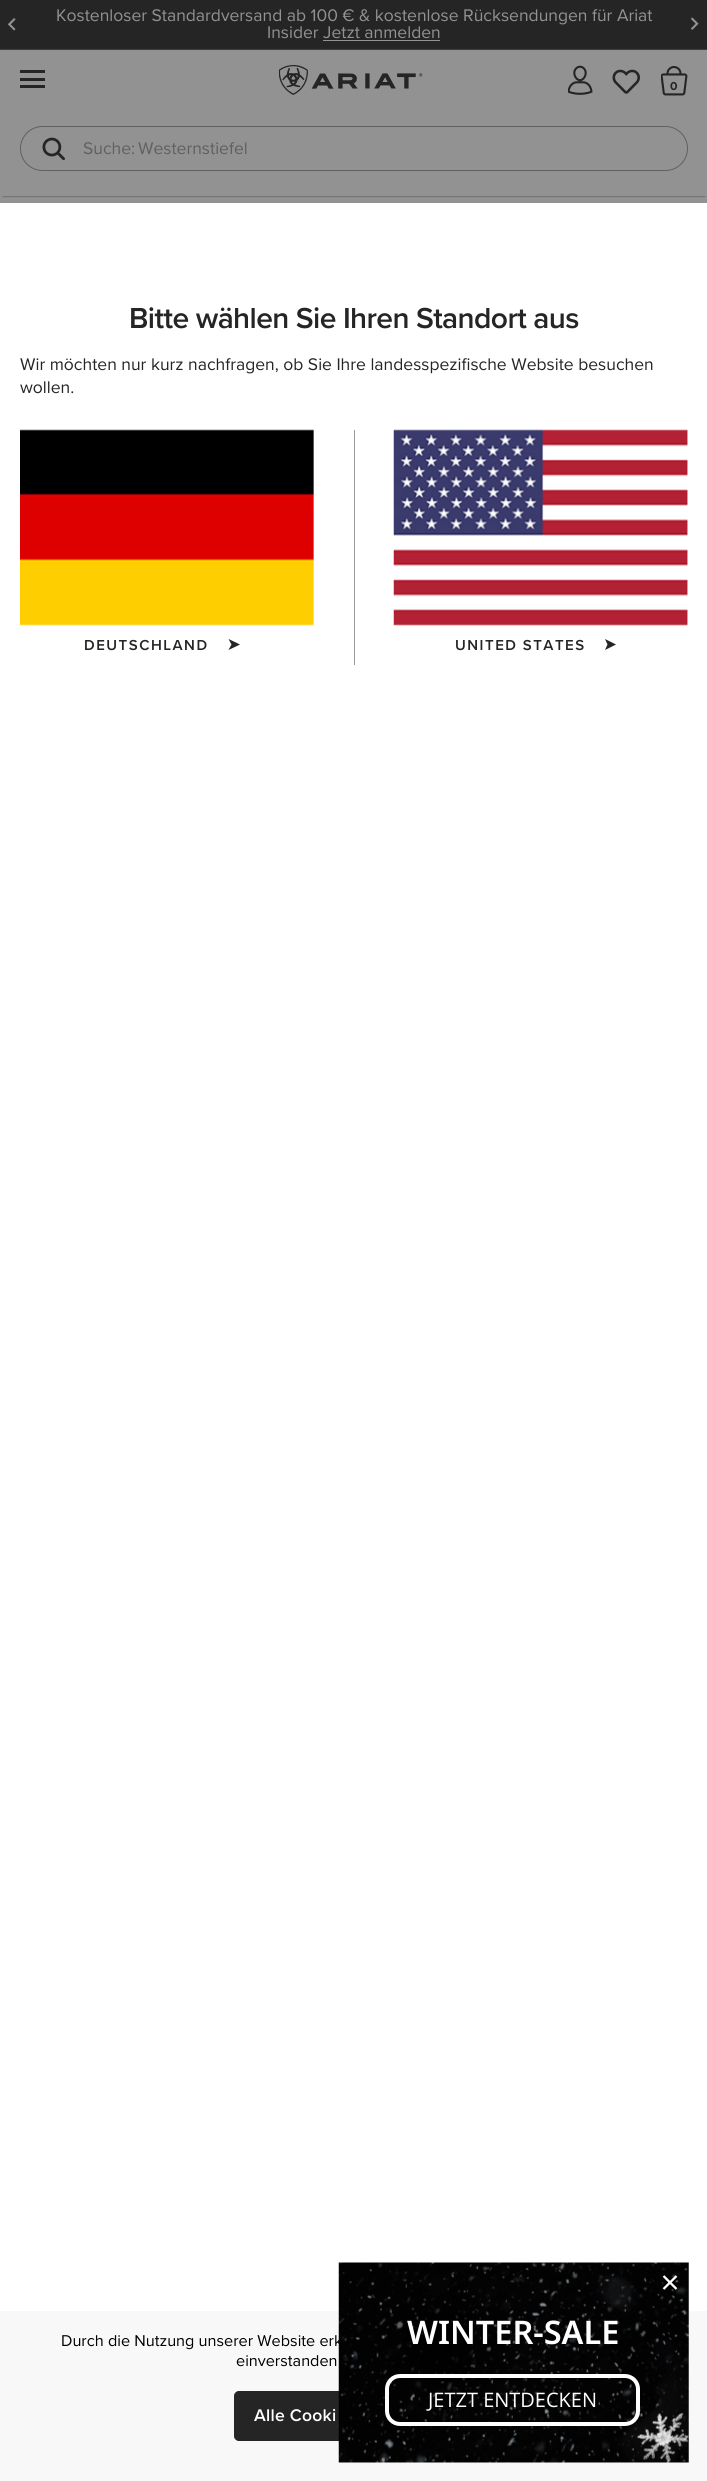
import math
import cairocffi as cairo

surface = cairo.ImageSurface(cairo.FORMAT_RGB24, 707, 2481)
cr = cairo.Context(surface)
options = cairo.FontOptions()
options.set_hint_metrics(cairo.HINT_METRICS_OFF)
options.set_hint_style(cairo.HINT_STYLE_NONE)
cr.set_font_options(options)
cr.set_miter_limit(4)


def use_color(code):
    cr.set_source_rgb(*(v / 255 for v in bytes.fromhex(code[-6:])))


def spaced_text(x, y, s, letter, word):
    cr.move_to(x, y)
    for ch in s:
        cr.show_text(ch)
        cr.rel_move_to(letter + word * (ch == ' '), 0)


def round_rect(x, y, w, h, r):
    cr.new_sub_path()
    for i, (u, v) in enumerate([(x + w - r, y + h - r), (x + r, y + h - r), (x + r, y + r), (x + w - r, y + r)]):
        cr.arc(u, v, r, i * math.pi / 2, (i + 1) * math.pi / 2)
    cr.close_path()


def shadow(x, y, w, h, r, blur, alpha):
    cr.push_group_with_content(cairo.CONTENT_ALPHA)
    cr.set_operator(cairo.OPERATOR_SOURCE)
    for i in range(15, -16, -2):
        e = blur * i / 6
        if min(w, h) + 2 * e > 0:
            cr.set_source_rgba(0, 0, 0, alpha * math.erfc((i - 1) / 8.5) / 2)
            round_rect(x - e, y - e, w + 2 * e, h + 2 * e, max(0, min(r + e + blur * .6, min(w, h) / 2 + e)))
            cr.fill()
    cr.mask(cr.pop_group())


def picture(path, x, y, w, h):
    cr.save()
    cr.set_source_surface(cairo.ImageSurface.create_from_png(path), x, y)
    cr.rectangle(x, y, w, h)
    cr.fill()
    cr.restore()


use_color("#929292")
cr.paint()
cr.save()
cr.rectangle(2, 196, 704, 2)
cr.clip()
use_color("#131313")
shadow(3, 5, 702, 191, 0, 1, 0.65)
cr.restore()
use_color("#252525")
cr.rectangle(0, 0, 707, 49)
cr.fill()
use_color("#3d3d3d")
cr.rectangle(0, 49, 707, 1)
cr.fill()
picture("img1.png", 7, 18, 9, 13)
cr.select_font_face("Proxima Nova")
cr.set_font_size(17.5)
use_color("#929292")
cr.move_to(56, 21)
cr.show_text("Kostenloser Standardversand ab 100 € & kostenlose Rücksendungen für Ariat")
cr.move_to(267, 38)
cr.show_text("Insider Jetzt anmelden")
cr.rectangle(323, 40, 117, 1)
cr.fill()
picture("img2.png", 690, 17, 9, 13)
use_color("#252525")
cr.rectangle(20, 70, 25, 3)
cr.fill()
cr.rectangle(20, 78, 25, 3)
cr.fill()
cr.rectangle(20, 85, 25, 3)
cr.fill()
picture("img3.png", 279, 65, 144, 30)
picture("img4.png", 568, 65, 25, 30)
picture("img5.png", 612, 69, 28, 25)
picture("img6.png", 661, 66, 27, 30)
cr.select_font_face("Proxima Nova", cairo.FONT_SLANT_NORMAL, cairo.FONT_WEIGHT_BOLD)
cr.set_font_size(12)
spaced_text(670, 90, "0", 1, 0)
round_rect(20.5, 126.5, 667, 44, 22)
use_color("#606060")
cr.set_line_width(1)
cr.stroke()
picture("img7.png", 42, 137, 23, 24)
cr.select_font_face("Proxima Nova")
cr.set_font_size(17.5)
cr.move_to(83, 154)
cr.show_text("Suche:")
cr.move_to(138, 154)
cr.show_text("Westernstiefel")
use_color("#ffffff")
cr.rectangle(0, 203, 707, 2108)
cr.fill()
cr.select_font_face("Proxima Nova SemiBold")
cr.set_font_size(30)
use_color("#252525")
spaced_text(129, 328, "Bitte wählen Sie Ihren Standort aus", -0.6, 0)
cr.select_font_face("Proxima Nova")
cr.set_font_size(17.5)
cr.move_to(20, 370)
cr.show_text("Wir möchten nur kurz nachfragen, ob Sie Ihre landesspezifische Website besuchen")
cr.move_to(20, 393)
cr.show_text("wollen.")
picture("img8.png", 20, 429, 294, 197)
cr.select_font_face("Proxima Nova SemiBold")
cr.set_font_size(15)
spaced_text(84, 650, "DEUTSCHLAND", 1.5, 0)
cr.new_path()
cr.move_to(240, 644.5)
cr.line_to(228.5, 650)
cr.line_to(231.5, 644.5)
cr.line_to(228.5, 639)
cr.close_path()
cr.fill()
use_color("#9b9b9b")
cr.rectangle(354, 430, 1, 235)
cr.fill()
picture("img9.png", 393, 429, 295, 197)
use_color("#252525")
spaced_text(455, 650, "UNITED STATES", 1.5, 0)
cr.new_path()
cr.move_to(616, 644.5)
cr.line_to(605, 650)
cr.line_to(607.5, 644.5)
cr.line_to(605, 639)
cr.close_path()
cr.fill()
use_color("#f8f8f8")
cr.rectangle(0, 2311, 707, 170)
cr.fill()
cr.select_font_face("Proxima Nova")
cr.set_font_size(16.25)
use_color("#000000")
cr.move_to(61, 2346)
cr.show_text("Durch die Nutzung unserer Website erk")
cr.move_to(236, 2366)
cr.show_text("einverstanden")
use_color("#252525")
round_rect(234.5, 2391.5, 239, 49, 4.5)
cr.fill_preserve()
cr.stroke()
cr.select_font_face("Proxima Nova SemiBold")
cr.set_font_size(17.5)
use_color("#ffffff")
spaced_text(254, 2421, "Alle Cooki", 0.25, 0)
cr.rectangle(339, 2311, 350, 152)
cr.fill()
picture("img10.png", 338, 2262, 351, 201)
cr.new_path()
cr.move_to(663.5, 2276)
cr.line_to(676.5, 2289)
cr.move_to(676.5, 2276)
cr.line_to(663.5, 2289)
cr.set_line_width(2.3)
cr.stroke()
cr.select_font_face("Noto Sans SemiBold")
cr.set_font_size(32.5)
cr.move_to(407, 2344)
cr.show_text("WINTER-SALE")
round_rect(387, 2376, 251, 48, 13)
cr.set_line_width(4)
cr.stroke()
cr.select_font_face("Open Sans")
cr.set_font_size(20)
cr.move_to(428, 2407)
cr.show_text("JETZT ENTDECKEN")
surface.write_to_png("result.png")
